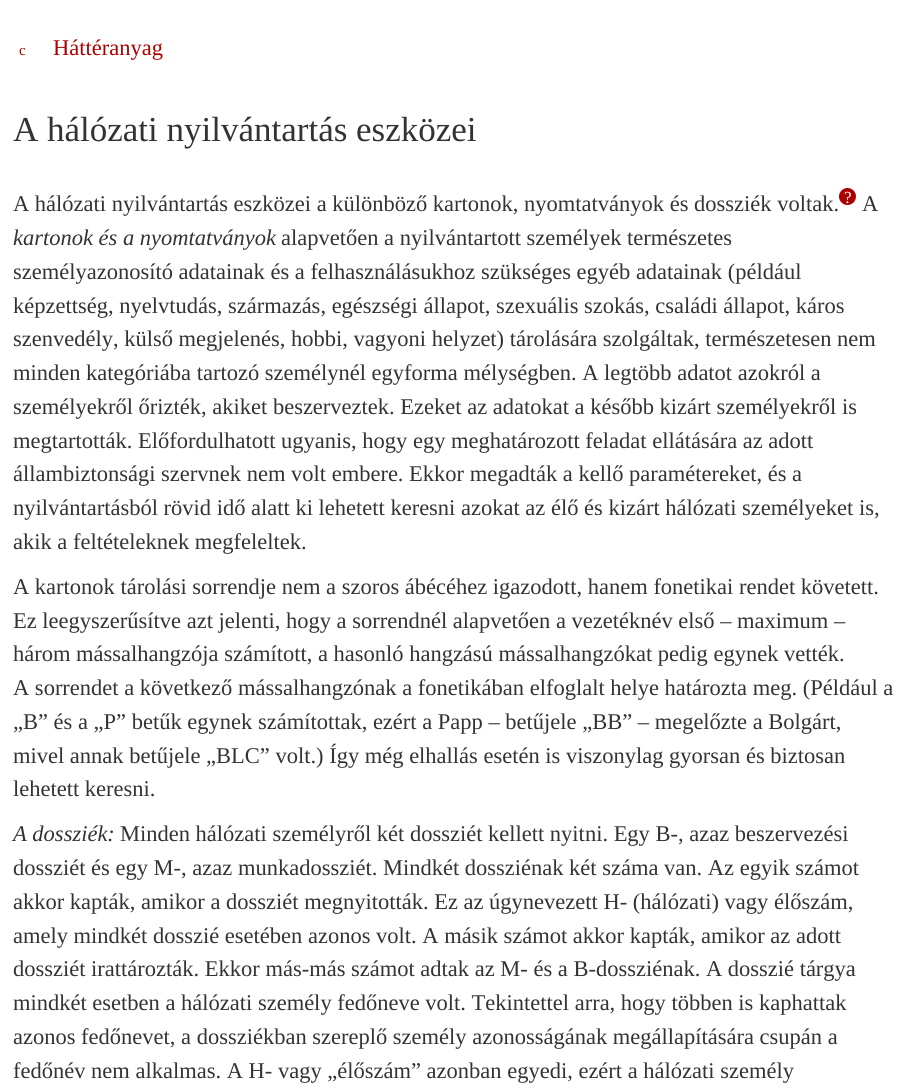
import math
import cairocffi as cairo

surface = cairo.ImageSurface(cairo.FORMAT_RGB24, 907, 1088)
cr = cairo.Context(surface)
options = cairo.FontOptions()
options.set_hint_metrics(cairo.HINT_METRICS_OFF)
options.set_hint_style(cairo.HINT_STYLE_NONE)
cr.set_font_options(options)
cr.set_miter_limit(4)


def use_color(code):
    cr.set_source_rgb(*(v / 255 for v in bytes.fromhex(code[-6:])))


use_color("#ffffff")
cr.paint()
cr.select_font_face("Liberation Serif")
cr.set_font_size(15)
use_color("#ab0000")
cr.move_to(19, 55)
cr.show_text("c")
cr.set_font_size(22.5)
cr.move_to(53, 55)
cr.show_text("Háttéranyag")
cr.set_font_size(35)
use_color("#333333")
cr.move_to(13, 141)
cr.show_text("A hálózati nyilvántartás eszközei")
cr.set_font_size(22.5)
cr.move_to(13, 211)
cr.show_text("A hálózati nyilvántartás eszközei a különböző kartonok, nyomtatványok és dossziék voltak.")
use_color("#ab0000")
cr.new_path()
cr.arc(847.5, 196.5, 8.5, 0, 2 * math.pi)
cr.fill()
cr.set_font_size(17)
use_color("#ffffff")
cr.move_to(844, 203)
cr.show_text("?")
cr.set_font_size(22.5)
use_color("#333333")
cr.move_to(862, 211)
cr.show_text("A")
cr.select_font_face("Liberation Serif", cairo.FONT_SLANT_ITALIC)
cr.move_to(13, 245)
cr.show_text("kartonok és a nyomtatványok")
cr.select_font_face("Liberation Serif")
cr.move_to(281, 245)
cr.show_text("alapvetően a nyilvántartott személyek természetes")
cr.move_to(13, 279)
cr.show_text("személyazonosító adatainak és a felhasználásukhoz szükséges egyéb adatainak (például")
cr.move_to(13, 313)
cr.show_text("képzettség, nyelvtudás, származás, egészségi állapot, szexuális szokás, családi állapot, káros")
cr.move_to(13, 346)
cr.show_text("szenvedély, külső megjelenés, hobbi, vagyoni helyzet) tárolására szolgáltak, természetesen nem")
cr.move_to(13, 380)
cr.show_text("minden kategóriába tartozó személynél egyforma mélységben. A legtöbb adatot azokról a")
cr.move_to(13, 414)
cr.show_text("személyekről őrizték, akiket beszerveztek. Ezeket az adatokat a később kizárt személyekről is")
cr.move_to(13, 448)
cr.show_text("megtartották. Előfordulhatott ugyanis, hogy egy meghatározott feladat ellátására az adott")
cr.move_to(13, 481)
cr.show_text("állambiztonsági szervnek nem volt embere. Ekkor megadták a kellő paramétereket, és a")
cr.move_to(13, 515)
cr.show_text("nyilvántartásból rövid idő alatt ki lehetett keresni azokat az élő és kizárt hálózati személyeket is,")
cr.move_to(13, 549)
cr.show_text("akik a feltételeknek megfeleltek.")
cr.move_to(13, 594)
cr.show_text("A kartonok tárolási sorrendje nem a szoros ábécéhez igazodott, hanem fonetikai rendet követett.")
cr.move_to(13, 628)
cr.show_text("Ez leegyszerűsítve azt jelenti, hogy a sorrendnél alapvetően a vezetéknév első – maximum –")
cr.move_to(13, 661)
cr.show_text("három mássalhangzója számított, a hasonló hangzású mássalhangzókat pedig egynek vették.")
cr.move_to(13, 695)
cr.show_text("A sorrendet a következő mássalhangzónak a fonetikában elfoglalt helye határozta meg. (Például a")
cr.move_to(13, 729)
cr.show_text("„B” és a „P” betűk egynek számítottak, ezért a Papp – betűjele „BB” – megelőzte a Bolgárt,")
cr.move_to(13, 763)
cr.show_text("mivel annak betűjele „BLC” volt.) Így még elhallás esetén is viszonylag gyorsan és biztosan")
cr.move_to(13, 796)
cr.show_text("lehetett keresni.")
cr.select_font_face("Liberation Serif", cairo.FONT_SLANT_ITALIC)
cr.move_to(13, 841)
cr.show_text("A dossziék:")
cr.select_font_face("Liberation Serif")
cr.move_to(120, 841)
cr.show_text("Minden hálózati személyről két dossziét kellett nyitni. Egy B-, azaz beszervezési")
cr.move_to(13, 875)
cr.show_text("dossziét és egy M-, azaz munkadossziét. Mindkét dossziénak két száma van. Az egyik számot")
cr.move_to(13, 909)
cr.show_text("akkor kapták, amikor a dossziét megnyitották. Ez az úgynevezett H- (hálózati) vagy élőszám,")
cr.move_to(13, 943)
cr.show_text("amely mindkét dosszié esetében azonos volt. A másik számot akkor kapták, amikor az adott")
cr.move_to(13, 976)
cr.show_text("dossziét irattározták. Ekkor más-más számot adtak az M- és a B-dossziénak. A dosszié tárgya")
cr.move_to(13, 1010)
cr.show_text("mindkét esetben a hálózati személy fedőneve volt. Tekintettel arra, hogy többen is kaphattak")
cr.move_to(13, 1044)
cr.show_text("azonos fedőnevet, a dossziékban szereplő személy azonosságának megállapítására csupán a")
cr.move_to(13, 1078)
cr.show_text("fedőnév nem alkalmas. A H- vagy „élőszám” azonban egyedi, ezért a hálózati személy")
surface.write_to_png("result.png")
